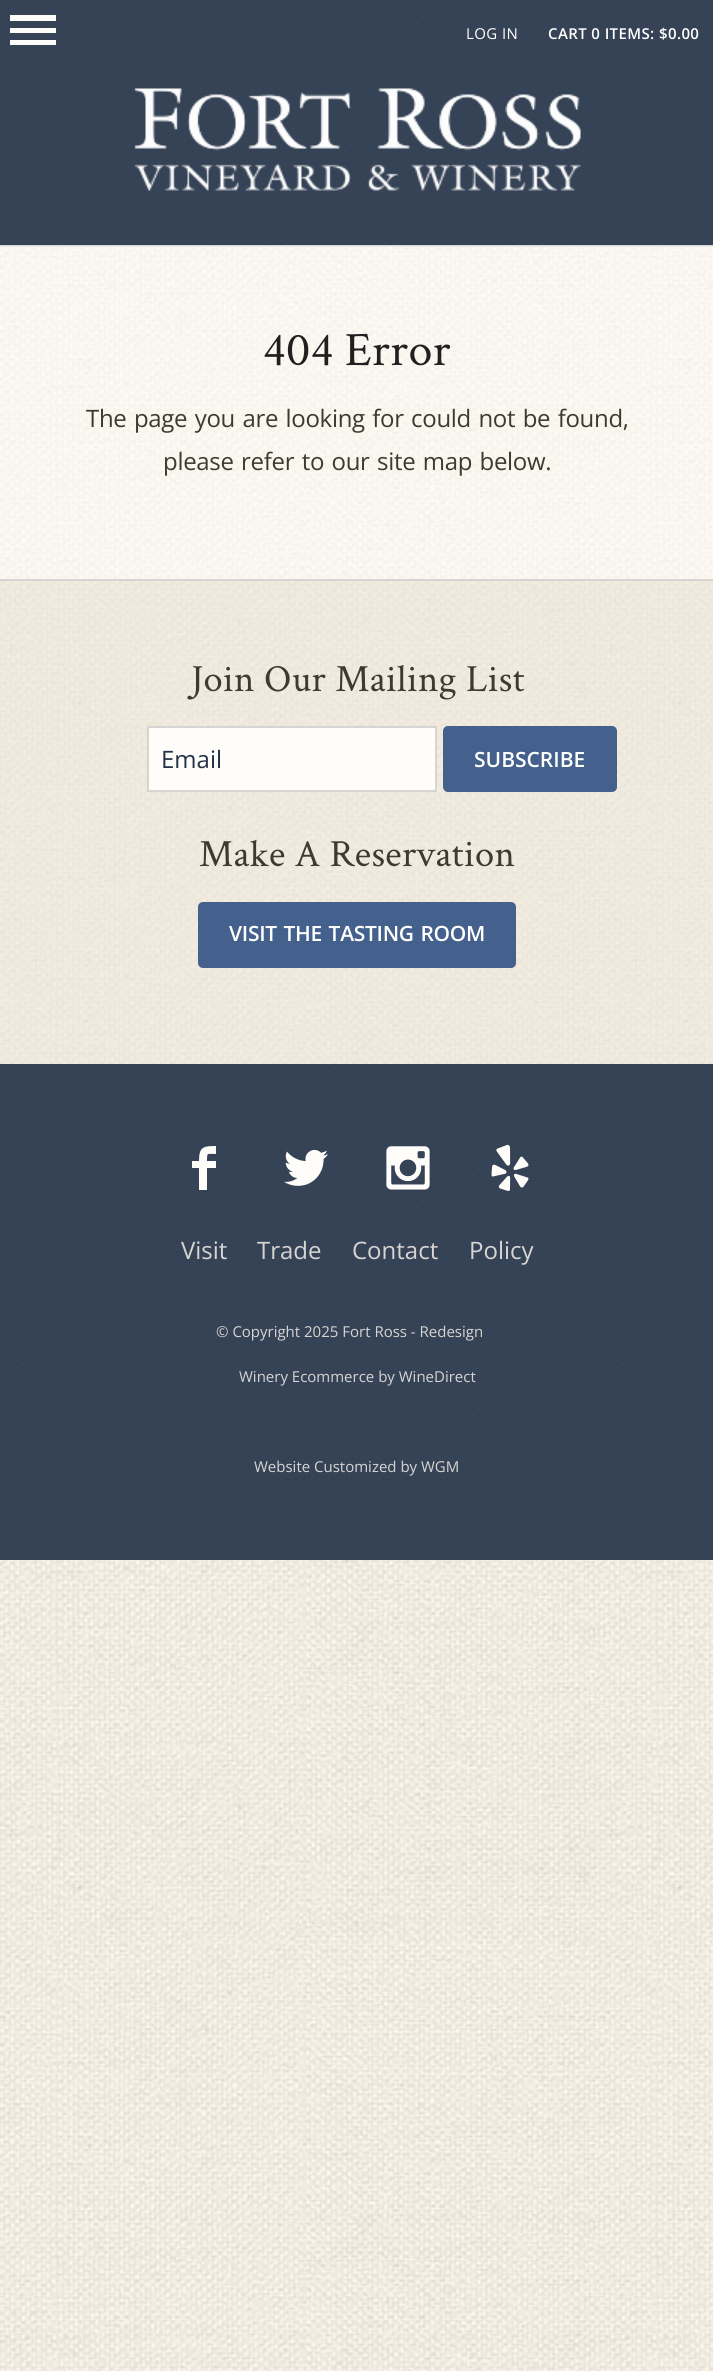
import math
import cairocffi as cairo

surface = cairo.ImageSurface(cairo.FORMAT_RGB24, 713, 2371)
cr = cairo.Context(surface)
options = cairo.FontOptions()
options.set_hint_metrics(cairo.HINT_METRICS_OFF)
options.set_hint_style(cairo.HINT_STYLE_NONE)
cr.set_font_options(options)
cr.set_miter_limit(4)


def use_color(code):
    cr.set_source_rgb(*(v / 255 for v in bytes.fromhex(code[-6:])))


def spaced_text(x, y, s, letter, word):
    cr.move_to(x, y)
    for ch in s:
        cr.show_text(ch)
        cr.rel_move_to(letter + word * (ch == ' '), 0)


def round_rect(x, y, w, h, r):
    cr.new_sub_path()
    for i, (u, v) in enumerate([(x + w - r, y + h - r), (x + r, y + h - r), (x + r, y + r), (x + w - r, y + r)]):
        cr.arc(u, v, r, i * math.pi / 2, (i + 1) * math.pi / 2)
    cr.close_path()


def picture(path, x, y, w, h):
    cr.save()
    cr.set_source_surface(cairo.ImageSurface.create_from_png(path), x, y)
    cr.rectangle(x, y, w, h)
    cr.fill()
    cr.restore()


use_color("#ffffff")
cr.paint()
picture("img1.png", 0, 0, 713, 2371)
cr.set_source_rgba(0.133, 0.192, 0.278, 0.9)
cr.rectangle(0, 0, 713, 245)
cr.fill()
use_color("#fffdfa")
cr.new_path()
cr.move_to(10, 45)
cr.line_to(56, 45)
cr.line_to(56, 40)
cr.line_to(10, 40)
cr.close_path()
cr.move_to(10, 33)
cr.line_to(56, 33)
cr.line_to(56, 28)
cr.line_to(10, 28)
cr.close_path()
cr.move_to(10, 15)
cr.line_to(10, 21)
cr.line_to(56, 21)
cr.line_to(56, 15)
cr.close_path()
cr.fill()
cr.select_font_face("Open Sans")
cr.set_font_size(15)
use_color("#ffffff")
spaced_text(466, 39, "LOG IN", 0.4, 0)
cr.select_font_face("Open Sans SemiBold")
spaced_text(548, 39, "CART 0 ITEMS: $0.00", 0.4, 0)
picture("img2.png", 134, 88, 447, 103)
use_color("#d7d5d3")
cr.rectangle(0, 245, 713, 2)
cr.fill()
cr.set_source_rgba(1, 0.992, 0.98, 0.6)
cr.rectangle(0, 246, 713, 333)
cr.fill()
cr.select_font_face("Crimson Text")
cr.set_font_size(48)
use_color("#231f20")
spaced_text(263, 365, "404 Error", 0.4, 0)
cr.select_font_face("Open Sans")
cr.set_font_size(24)
use_color("#3d3b30")
spaced_text(86, 427, "The page you are looking for could not be found,", -0.3, 1.5)
spaced_text(163, 470, "please refer to our site map below.", -0.3, 1.5)
cr.set_source_rgba(0.937, 0.906, 0.855, 0.6)
cr.rectangle(0, 581, 713, 483)
cr.fill()
use_color("#d7d5d3")
cr.rectangle(0, 579, 713, 2)
cr.fill()
cr.select_font_face("Crimson Text")
cr.set_font_size(38.5)
use_color("#3d3b30")
spaced_text(191, 691, "Join Our Mailing List", 0.4, 0)
use_color("#fffdfa")
cr.rectangle(148, 727, 288, 64)
cr.fill_preserve()
use_color("#d7d5d3")
cr.stroke()
cr.select_font_face("Open Sans")
cr.set_font_size(24)
use_color("#223147")
cr.move_to(161, 768)
cr.show_text("Email")
use_color("#44618d")
round_rect(443, 726, 174, 66, 5)
cr.fill()
cr.select_font_face("Open Sans SemiBold")
cr.set_font_size(21)
use_color("#ffffff")
cr.move_to(474, 767)
cr.show_text("SUBSCRIBE")
cr.select_font_face("Crimson Text")
cr.set_font_size(38.5)
use_color("#3d3b30")
spaced_text(199, 866, "Make A Reservation", 0.4, 0)
use_color("#44618d")
round_rect(198, 902, 318, 66, 5)
cr.fill()
cr.select_font_face("Open Sans SemiBold")
cr.set_font_size(21)
use_color("#ffffff")
spaced_text(229, 941, "VISIT THE TASTING ROOM", -0.3, 1.5)
cr.set_source_rgba(0.133, 0.192, 0.278, 0.9)
cr.rectangle(0, 1064, 713, 139)
cr.fill()
use_color("#fffdfa")
cr.new_path()
cr.move_to(216, 1154)
cr.curve_to(207, 1154, 207, 1152, 207, 1161)
cr.line_to(216, 1161)
cr.line_to(216, 1168)
cr.line_to(207, 1168)
cr.line_to(207, 1190)
cr.line_to(199, 1190)
cr.line_to(199, 1168)
cr.line_to(192, 1168)
cr.line_to(192, 1161)
cr.line_to(199, 1161)
cr.curve_to(199, 1147, 203, 1146, 216, 1146)
cr.close_path()
cr.fill()
picture("img3.png", 284, 1149, 44, 37)
picture("img4.png", 386, 1146, 44, 44)
picture("img5.png", 491, 1144, 38, 47)
cr.set_source_rgba(0.133, 0.192, 0.278, 0.9)
cr.rectangle(0, 1203, 713, 357)
cr.fill()
cr.select_font_face("Open Sans")
cr.set_font_size(24)
use_color("#d7d5d3")
cr.move_to(181, 1259)
cr.show_text("Visit")
cr.move_to(257, 1259)
cr.show_text("Trade")
cr.move_to(352, 1259)
cr.show_text("Contact")
cr.move_to(469, 1259)
cr.show_text("Policy")
cr.set_font_size(15)
cr.move_to(216, 1337)
cr.show_text("© Copyright 2025 Fort Ross - Redesign")
cr.move_to(239, 1382)
cr.show_text("Winery Ecommerce by WineDirect")
cr.move_to(254, 1472)
cr.show_text("Website Customized by WGM")
surface.write_to_png("result.png")
